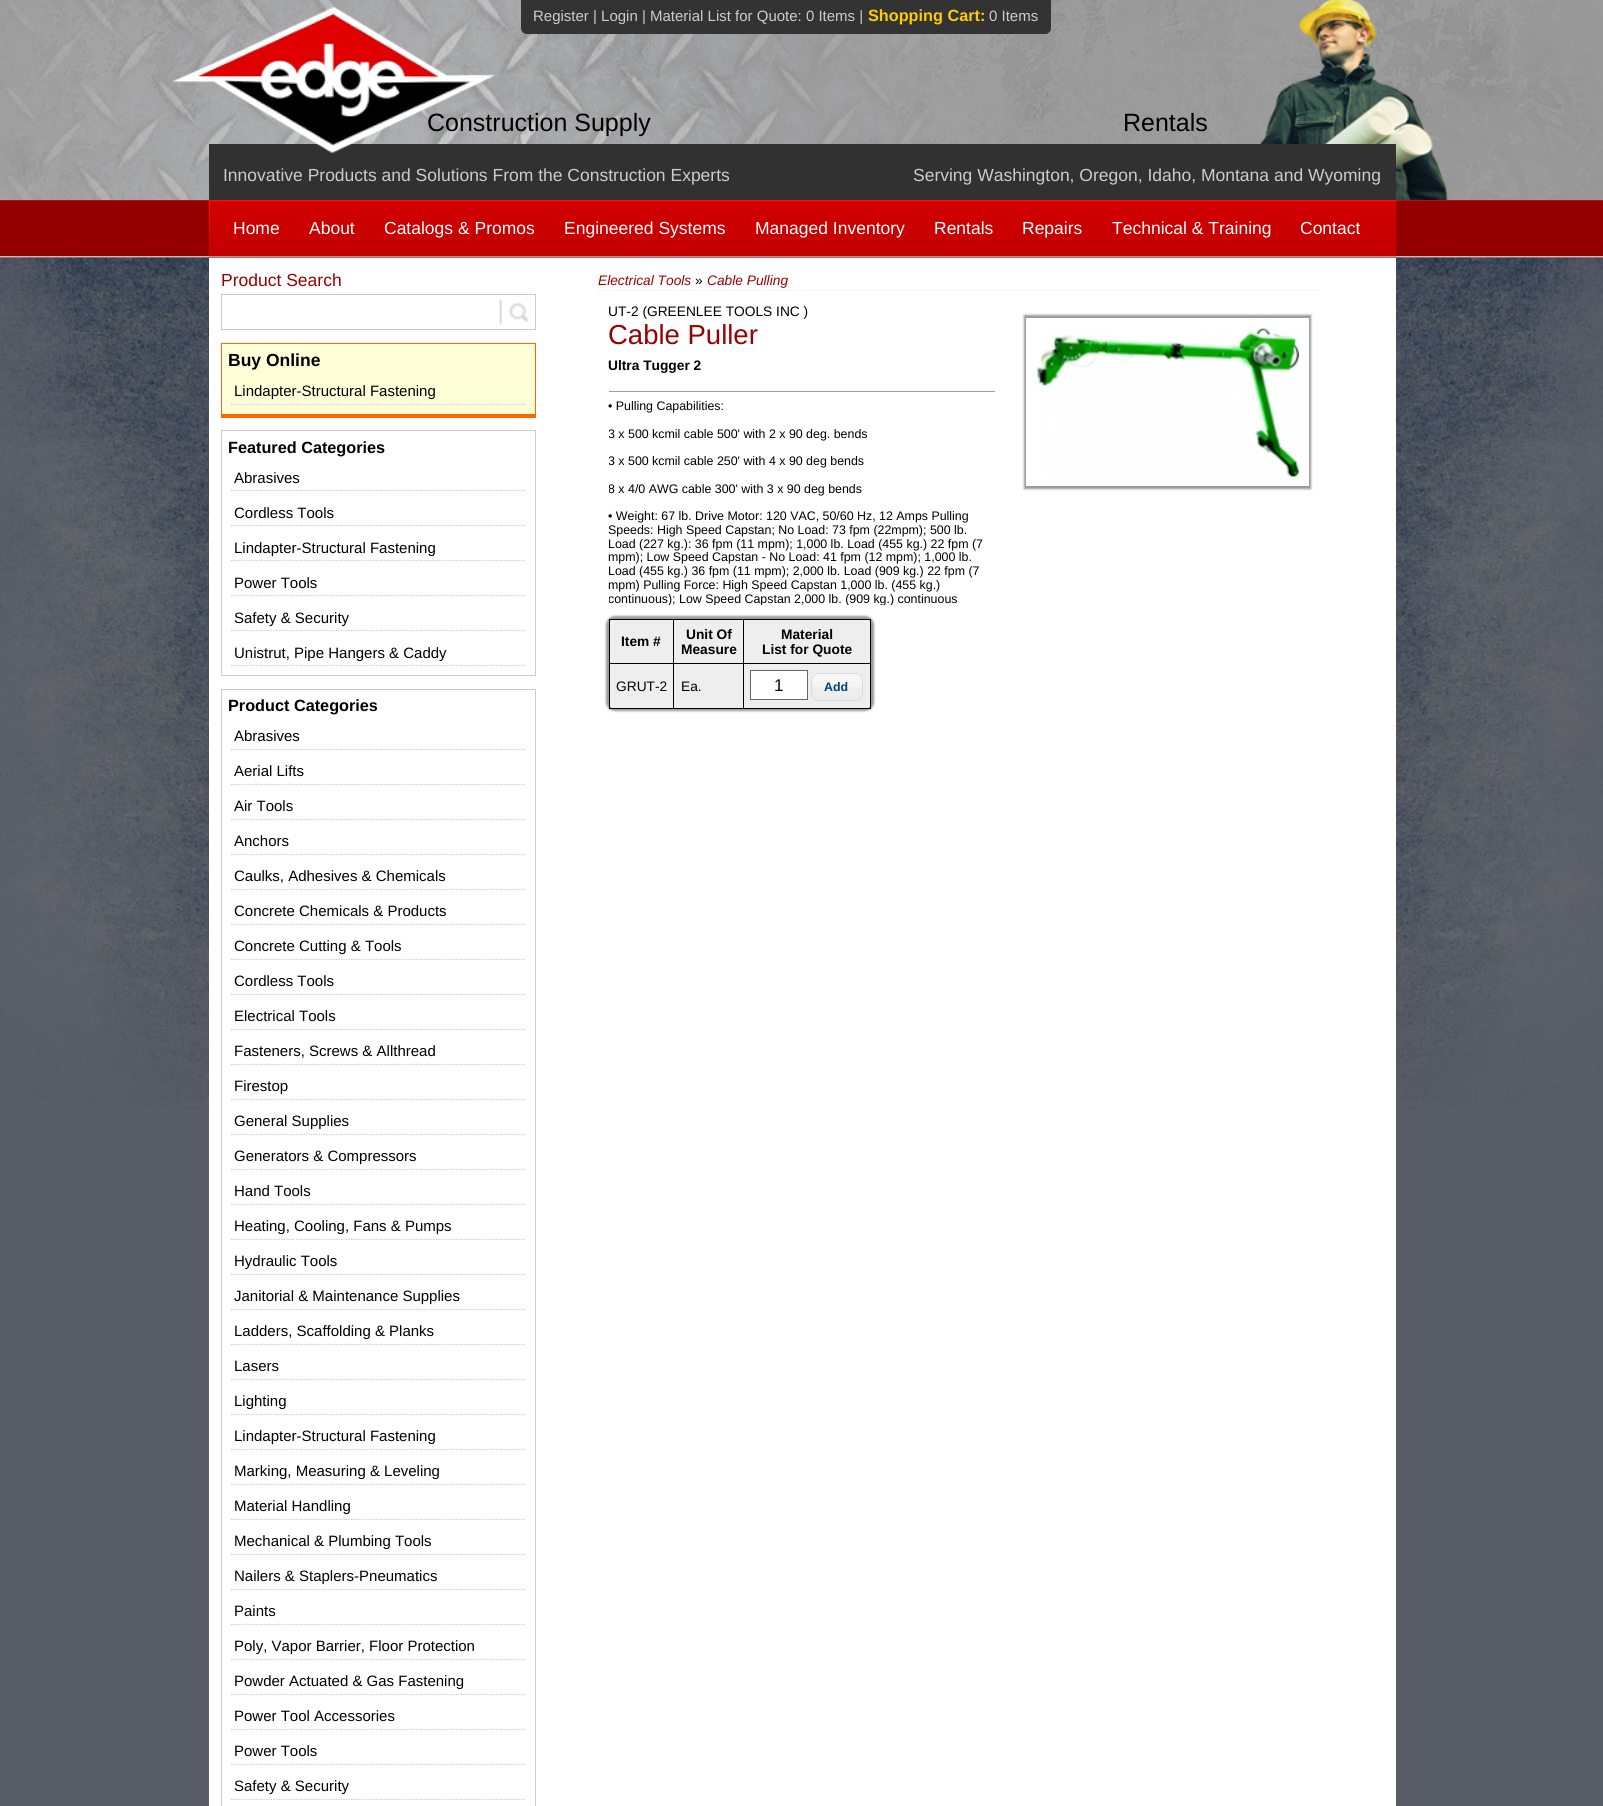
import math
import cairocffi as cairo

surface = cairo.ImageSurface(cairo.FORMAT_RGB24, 1603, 1806)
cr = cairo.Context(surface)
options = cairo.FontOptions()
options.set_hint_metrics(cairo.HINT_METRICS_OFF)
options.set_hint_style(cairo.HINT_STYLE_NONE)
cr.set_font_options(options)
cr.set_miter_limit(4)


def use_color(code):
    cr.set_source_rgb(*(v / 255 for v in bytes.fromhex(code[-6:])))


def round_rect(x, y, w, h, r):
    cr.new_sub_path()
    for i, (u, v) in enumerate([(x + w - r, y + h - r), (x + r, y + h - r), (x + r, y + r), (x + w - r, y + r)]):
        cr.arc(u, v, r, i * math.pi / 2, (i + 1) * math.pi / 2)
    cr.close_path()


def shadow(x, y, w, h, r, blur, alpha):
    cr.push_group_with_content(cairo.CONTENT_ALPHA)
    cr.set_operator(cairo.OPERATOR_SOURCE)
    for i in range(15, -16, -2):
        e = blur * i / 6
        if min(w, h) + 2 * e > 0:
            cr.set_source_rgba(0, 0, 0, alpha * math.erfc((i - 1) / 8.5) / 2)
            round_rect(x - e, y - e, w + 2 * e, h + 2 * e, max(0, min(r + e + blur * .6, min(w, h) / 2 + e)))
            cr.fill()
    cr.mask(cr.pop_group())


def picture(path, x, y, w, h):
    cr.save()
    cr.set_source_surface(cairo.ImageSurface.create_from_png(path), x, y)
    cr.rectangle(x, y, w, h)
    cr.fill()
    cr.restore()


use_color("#595d66")
cr.paint()
picture("img1.png", 0, 200, 1603, 58)
picture("img2.png", 0, 0, 1603, 200)
cr.select_font_face("Liberation Sans")
cr.set_font_size(25)
use_color("#000000")
cr.move_to(427, 131)
cr.show_text("Construction Supply")
picture("img4.png", 1258, 0, 190, 200)
use_color("#313131")
cr.rectangle(209, 144, 1187, 56)
cr.fill()
picture("img3.png", 172, 6, 323, 148)
use_color("#333333")
cr.new_path()
cr.move_to(521, 0)
cr.line_to(1051, 0)
cr.line_to(1051, 28)
cr.curve_to(1051, 31.5, 1048.5, 34, 1045, 34)
cr.line_to(527, 34)
cr.curve_to(523.5, 34, 521, 31.5, 521, 28)
cr.close_path()
cr.fill()
cr.set_font_size(15)
use_color("#cccccc")
cr.move_to(533, 21)
cr.show_text("Register | Login | Material List for Quote: 0 Items |")
cr.select_font_face("Liberation Sans", cairo.FONT_SLANT_NORMAL, cairo.FONT_WEIGHT_BOLD)
cr.set_font_size(16.25)
use_color("#ffcc00")
cr.move_to(868, 21)
cr.show_text("Shopping Cart:")
cr.select_font_face("Liberation Sans")
cr.set_font_size(15)
use_color("#cccccc")
cr.move_to(989, 21)
cr.show_text("0 Items")
cr.set_font_size(25)
use_color("#000000")
cr.move_to(1123, 131)
cr.show_text("Rentals")
cr.set_font_size(17.5)
use_color("#cccccc")
cr.move_to(223, 181)
cr.show_text("Innovative Products and Solutions From the Construction Experts")
cr.move_to(913, 181)
cr.show_text("Serving Washington, Oregon, Idaho, Montana and Wyoming")
picture("img5.png", 208, 200, 1189, 57)
use_color("#ffffff")
cr.move_to(233, 234)
cr.show_text("Home")
cr.move_to(309, 234)
cr.show_text("About")
cr.move_to(384, 234)
cr.show_text("Catalogs & Promos")
cr.move_to(564, 234)
cr.show_text("Engineered Systems")
cr.move_to(755, 234)
cr.show_text("Managed Inventory")
cr.move_to(934, 234)
cr.show_text("Rentals")
cr.move_to(1022, 234)
cr.show_text("Repairs")
cr.move_to(1112, 234)
cr.show_text("Technical & Training")
cr.move_to(1300, 234)
cr.show_text("Contact")
picture("img6.png", 0, 257, 1603, 852)
cr.rectangle(209, 258, 1187, 1548)
cr.fill()
use_color("#990000")
cr.move_to(221, 286)
cr.show_text("Product Search")
cr.rectangle(221.5, 294.5, 314, 35)
use_color("#cccccc")
cr.set_line_width(1)
cr.stroke()
picture("img7.png", 499, 299, 30, 26)
use_color("#ffffd7")
cr.rectangle(223, 344, 312, 70)
cr.fill()
use_color("#ff6600")
cr.rectangle(221, 343, 315, 1)
cr.fill()
cr.rectangle(535, 343, 1, 75)
cr.fill()
cr.rectangle(221, 414, 315, 4)
cr.fill()
cr.rectangle(221, 343, 1, 75)
cr.fill()
cr.select_font_face("Liberation Sans", cairo.FONT_SLANT_NORMAL, cairo.FONT_WEIGHT_BOLD)
use_color("#000000")
cr.move_to(228, 366)
cr.show_text("Buy Online")
cr.new_path()
cr.move_to(231, 404.5)
cr.line_to(526, 404.5)
use_color("#cccccc")
cr.set_line_width(1.2)
cr.set_dash([1.25, 1.25])
cr.stroke()
cr.select_font_face("Liberation Sans")
cr.set_font_size(15)
use_color("#000000")
cr.move_to(234, 396)
cr.show_text("Lindapter-Structural Fastening")
cr.rectangle(221.5, 430.5, 314, 245)
use_color("#cccccc")
cr.set_line_width(1)
cr.set_dash([])
cr.stroke()
cr.select_font_face("Liberation Sans", cairo.FONT_SLANT_NORMAL, cairo.FONT_WEIGHT_BOLD)
cr.set_font_size(16.25)
use_color("#000000")
cr.move_to(228, 453)
cr.show_text("Featured Categories")
cr.new_path()
cr.move_to(231, 490.5)
cr.line_to(526, 490.5)
use_color("#cccccc")
cr.set_line_width(1.2)
cr.set_dash([1.25, 1.25])
cr.stroke()
cr.select_font_face("Liberation Sans")
cr.set_font_size(15)
use_color("#000000")
cr.move_to(234, 483)
cr.show_text("Abrasives")
cr.new_path()
cr.move_to(231, 525.5)
cr.line_to(526, 525.5)
use_color("#cccccc")
cr.stroke()
use_color("#000000")
cr.move_to(234, 518)
cr.show_text("Cordless Tools")
cr.new_path()
cr.move_to(231, 560.5)
cr.line_to(526, 560.5)
use_color("#cccccc")
cr.stroke()
use_color("#000000")
cr.move_to(234, 553)
cr.show_text("Lindapter-Structural Fastening")
cr.new_path()
cr.move_to(231, 595.5)
cr.line_to(526, 595.5)
use_color("#cccccc")
cr.stroke()
use_color("#000000")
cr.move_to(234, 588)
cr.show_text("Power Tools")
cr.new_path()
cr.move_to(231, 630.5)
cr.line_to(526, 630.5)
use_color("#cccccc")
cr.stroke()
use_color("#000000")
cr.move_to(234, 623)
cr.show_text("Safety & Security")
cr.new_path()
cr.move_to(231, 665.5)
cr.line_to(526, 665.5)
use_color("#cccccc")
cr.stroke()
use_color("#000000")
cr.move_to(234, 658)
cr.show_text("Unistrut, Pipe Hangers & Caddy")
cr.rectangle(221.5, 689.5, 314, 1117)
use_color("#cccccc")
cr.set_line_width(1)
cr.set_dash([])
cr.stroke()
cr.select_font_face("Liberation Sans", cairo.FONT_SLANT_NORMAL, cairo.FONT_WEIGHT_BOLD)
cr.set_font_size(16.25)
use_color("#000000")
cr.move_to(228, 711)
cr.show_text("Product Categories")
cr.new_path()
cr.move_to(231, 749.5)
cr.line_to(526, 749.5)
use_color("#cccccc")
cr.set_line_width(1.2)
cr.set_dash([1.25, 1.25])
cr.stroke()
cr.select_font_face("Liberation Sans")
cr.set_font_size(15)
use_color("#000000")
cr.move_to(234, 741)
cr.show_text("Abrasives")
cr.new_path()
cr.move_to(231, 784.5)
cr.line_to(526, 784.5)
use_color("#cccccc")
cr.stroke()
use_color("#000000")
cr.move_to(234, 776)
cr.show_text("Aerial Lifts")
cr.new_path()
cr.move_to(231, 819.5)
cr.line_to(526, 819.5)
use_color("#cccccc")
cr.stroke()
use_color("#000000")
cr.move_to(234, 811)
cr.show_text("Air Tools")
cr.new_path()
cr.move_to(231, 854.5)
cr.line_to(526, 854.5)
use_color("#cccccc")
cr.stroke()
use_color("#000000")
cr.move_to(234, 846)
cr.show_text("Anchors")
cr.new_path()
cr.move_to(231, 889.5)
cr.line_to(526, 889.5)
use_color("#cccccc")
cr.stroke()
use_color("#000000")
cr.move_to(234, 881)
cr.show_text("Caulks, Adhesives & Chemicals")
cr.new_path()
cr.move_to(231, 924.5)
cr.line_to(526, 924.5)
use_color("#cccccc")
cr.stroke()
use_color("#000000")
cr.move_to(234, 916)
cr.show_text("Concrete Chemicals & Products")
cr.new_path()
cr.move_to(231, 959.5)
cr.line_to(526, 959.5)
use_color("#cccccc")
cr.stroke()
use_color("#000000")
cr.move_to(234, 951)
cr.show_text("Concrete Cutting & Tools")
cr.new_path()
cr.move_to(231, 994.5)
cr.line_to(526, 994.5)
use_color("#cccccc")
cr.stroke()
use_color("#000000")
cr.move_to(234, 986)
cr.show_text("Cordless Tools")
cr.new_path()
cr.move_to(231, 1029.5)
cr.line_to(526, 1029.5)
use_color("#cccccc")
cr.stroke()
use_color("#000000")
cr.move_to(234, 1021)
cr.show_text("Electrical Tools")
cr.new_path()
cr.move_to(231, 1064.5)
cr.line_to(526, 1064.5)
use_color("#cccccc")
cr.stroke()
use_color("#000000")
cr.move_to(234, 1056)
cr.show_text("Fasteners, Screws & Allthread")
cr.new_path()
cr.move_to(231, 1099.5)
cr.line_to(526, 1099.5)
use_color("#cccccc")
cr.stroke()
use_color("#000000")
cr.move_to(234, 1091)
cr.show_text("Firestop")
cr.new_path()
cr.move_to(231, 1134.5)
cr.line_to(526, 1134.5)
use_color("#cccccc")
cr.stroke()
use_color("#000000")
cr.move_to(234, 1126)
cr.show_text("General Supplies")
cr.new_path()
cr.move_to(231, 1169.5)
cr.line_to(526, 1169.5)
use_color("#cccccc")
cr.stroke()
use_color("#000000")
cr.move_to(234, 1161)
cr.show_text("Generators & Compressors")
cr.new_path()
cr.move_to(231, 1204.5)
cr.line_to(526, 1204.5)
use_color("#cccccc")
cr.stroke()
use_color("#000000")
cr.move_to(234, 1196)
cr.show_text("Hand Tools")
cr.new_path()
cr.move_to(231, 1239.5)
cr.line_to(526, 1239.5)
use_color("#cccccc")
cr.stroke()
use_color("#000000")
cr.move_to(234, 1231)
cr.show_text("Heating, Cooling, Fans & Pumps")
cr.new_path()
cr.move_to(231, 1274.5)
cr.line_to(526, 1274.5)
use_color("#cccccc")
cr.stroke()
use_color("#000000")
cr.move_to(234, 1266)
cr.show_text("Hydraulic Tools")
cr.new_path()
cr.move_to(231, 1309.5)
cr.line_to(526, 1309.5)
use_color("#cccccc")
cr.stroke()
use_color("#000000")
cr.move_to(234, 1301)
cr.show_text("Janitorial & Maintenance Supplies")
cr.new_path()
cr.move_to(231, 1344.5)
cr.line_to(526, 1344.5)
use_color("#cccccc")
cr.stroke()
use_color("#000000")
cr.move_to(234, 1336)
cr.show_text("Ladders, Scaffolding & Planks")
cr.new_path()
cr.move_to(231, 1379.5)
cr.line_to(526, 1379.5)
use_color("#cccccc")
cr.stroke()
use_color("#000000")
cr.move_to(234, 1371)
cr.show_text("Lasers")
cr.new_path()
cr.move_to(231, 1414.5)
cr.line_to(526, 1414.5)
use_color("#cccccc")
cr.stroke()
use_color("#000000")
cr.move_to(234, 1406)
cr.show_text("Lighting")
cr.new_path()
cr.move_to(231, 1449.5)
cr.line_to(526, 1449.5)
use_color("#cccccc")
cr.stroke()
use_color("#000000")
cr.move_to(234, 1441)
cr.show_text("Lindapter-Structural Fastening")
cr.new_path()
cr.move_to(231, 1484.5)
cr.line_to(526, 1484.5)
use_color("#cccccc")
cr.stroke()
use_color("#000000")
cr.move_to(234, 1476)
cr.show_text("Marking, Measuring & Leveling")
cr.new_path()
cr.move_to(231, 1519.5)
cr.line_to(526, 1519.5)
use_color("#cccccc")
cr.stroke()
use_color("#000000")
cr.move_to(234, 1511)
cr.show_text("Material Handling")
cr.new_path()
cr.move_to(231, 1554.5)
cr.line_to(526, 1554.5)
use_color("#cccccc")
cr.stroke()
use_color("#000000")
cr.move_to(234, 1546)
cr.show_text("Mechanical & Plumbing Tools")
cr.new_path()
cr.move_to(231, 1589.5)
cr.line_to(526, 1589.5)
use_color("#cccccc")
cr.stroke()
use_color("#000000")
cr.move_to(234, 1581)
cr.show_text("Nailers & Staplers-Pneumatics")
cr.new_path()
cr.move_to(231, 1624.5)
cr.line_to(526, 1624.5)
use_color("#cccccc")
cr.stroke()
use_color("#000000")
cr.move_to(234, 1616)
cr.show_text("Paints")
cr.new_path()
cr.move_to(231, 1659.5)
cr.line_to(526, 1659.5)
use_color("#cccccc")
cr.stroke()
use_color("#000000")
cr.move_to(234, 1651)
cr.show_text("Poly, Vapor Barrier, Floor Protection")
cr.new_path()
cr.move_to(231, 1694.5)
cr.line_to(526, 1694.5)
use_color("#cccccc")
cr.stroke()
use_color("#000000")
cr.move_to(234, 1686)
cr.show_text("Powder Actuated & Gas Fastening")
cr.new_path()
cr.move_to(231, 1729.5)
cr.line_to(526, 1729.5)
use_color("#cccccc")
cr.stroke()
use_color("#000000")
cr.move_to(234, 1721)
cr.show_text("Power Tool Accessories")
cr.new_path()
cr.move_to(231, 1764.5)
cr.line_to(526, 1764.5)
use_color("#cccccc")
cr.stroke()
use_color("#000000")
cr.move_to(234, 1756)
cr.show_text("Power Tools")
cr.new_path()
cr.move_to(231, 1799.5)
cr.line_to(526, 1799.5)
use_color("#cccccc")
cr.stroke()
use_color("#000000")
cr.move_to(234, 1791)
cr.show_text("Safety & Security")
use_color("#f5f5f5")
cr.rectangle(596, 290, 725, 1)
cr.fill()
cr.select_font_face("Liberation Sans", cairo.FONT_SLANT_ITALIC)
cr.set_font_size(13.75)
use_color("#990000")
cr.move_to(598, 285)
cr.show_text("Electrical Tools")
cr.select_font_face("Liberation Sans")
use_color("#000000")
cr.move_to(695, 285)
cr.show_text("»")
cr.select_font_face("Liberation Sans", cairo.FONT_SLANT_ITALIC)
use_color("#990000")
cr.move_to(707, 285)
cr.show_text("Cable Pulling")
cr.select_font_face("Liberation Sans")
use_color("#000000")
cr.move_to(608, 316)
cr.show_text("UT-2 (GREENLEE TOOLS INC )")
cr.set_font_size(27.5)
use_color("#990000")
cr.move_to(608, 344)
cr.show_text("Cable Puller")
cr.select_font_face("Liberation Sans", cairo.FONT_SLANT_NORMAL, cairo.FONT_WEIGHT_BOLD)
cr.set_font_size(13.75)
use_color("#000000")
cr.move_to(608, 370)
cr.show_text("Ultra Tugger 2")
use_color("#9f9f9f")
cr.rectangle(609, 391, 387, 1)
cr.fill()
use_color("#eeeeee")
cr.rectangle(995, 391, 1, 1)
cr.fill()
cr.select_font_face("Liberation Sans")
cr.set_font_size(12.4)
use_color("#000000")
cr.move_to(608, 410)
cr.show_text("• Pulling Capabilities:")
cr.save()
cr.rectangle(609, 399, 387, 206)
cr.clip()
cr.move_to(608, 438)
cr.show_text("3 x 500 kcmil cable 500' with 2 x 90 deg. bends")
cr.move_to(608, 465)
cr.show_text("3 x 500 kcmil cable 250' with 4 x 90 deg bends")
cr.move_to(608, 493)
cr.show_text("8 x 4/0 AWG cable 300' with 3 x 90 deg bends")
cr.restore()
cr.move_to(608, 520)
cr.show_text("• Weight: 67 lb. Drive Motor: 120 VAC, 50/60 Hz, 12 Amps Pulling")
cr.move_to(608, 534)
cr.show_text("Speeds: High Speed Capstan; No Load: 73 fpm (22mpm); 500 lb.")
cr.move_to(608, 548)
cr.show_text("Load (227 kg.): 36 fpm (11 mpm); 1,000 lb. Load (455 kg.) 22 fpm (7")
cr.move_to(608, 561)
cr.show_text("mpm); Low Speed Capstan - No Load: 41 fpm (12 mpm); 1,000 lb.")
cr.move_to(608, 575)
cr.show_text("Load (455 kg.) 36 fpm (11 mpm); 2,000 lb. Load (909 kg.) 22 fpm (7")
cr.move_to(608, 589)
cr.show_text("mpm) Pulling Force: High Speed Capstan 1,000 lb. (455 kg.)")
cr.save()
cr.rectangle(609, 399, 387, 206)
cr.clip()
cr.move_to(608, 603)
cr.show_text("continuous); Low Speed Capstan 2,000 lb. (909 kg.) continuous")
cr.restore()
cr.save()
cr.set_fill_rule(cairo.FILL_RULE_EVEN_ODD)
cr.new_path()
cr.move_to(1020, 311)
cr.line_to(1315, 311)
cr.line_to(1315, 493)
cr.line_to(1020, 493)
cr.close_path()
cr.move_to(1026, 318)
cr.line_to(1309, 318)
cr.line_to(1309, 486)
cr.line_to(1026, 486)
cr.close_path()
cr.clip()
use_color("#999999")
shadow(1024, 315, 287, 174, 0, 1, 1)
cr.restore()
cr.rectangle(1028, 320, 279, 164)
use_color("#ffffff")
cr.set_line_width(4)
cr.set_dash([])
cr.stroke()
picture("img8.png", 1036, 327, 265, 151)
use_color("#999999")
shadow(606, 616, 268, 95, 9, 1, 1)
use_color("#eeeeee")
round_rect(609, 619, 262, 90, 6)
cr.fill()
use_color("#000000")
cr.rectangle(609, 619, 262, 1)
cr.fill()
cr.rectangle(870, 619, 1, 90)
cr.fill()
cr.rectangle(609, 708, 262, 1)
cr.fill()
cr.rectangle(609, 619, 1, 90)
cr.fill()
use_color("#eeeeee")
cr.rectangle(610, 620, 260, 2)
cr.fill()
cr.select_font_face("Liberation Sans", cairo.FONT_SLANT_NORMAL, cairo.FONT_WEIGHT_BOLD)
cr.set_font_size(13.75)
use_color("#000000")
cr.move_to(621, 646)
cr.show_text("Item #")
cr.rectangle(743, 663, 128, 1)
cr.fill()
cr.rectangle(743, 663, 1, 46)
cr.fill()
cr.rectangle(673, 663, 71, 1)
cr.fill()
cr.rectangle(673, 663, 1, 46)
cr.fill()
cr.rectangle(609, 663, 65, 1)
cr.fill()
cr.rectangle(673, 619, 1, 45)
cr.fill()
cr.move_to(686, 639)
cr.show_text("Unit Of")
cr.move_to(681, 654)
cr.show_text("Measure")
cr.rectangle(743, 619, 1, 45)
cr.fill()
cr.move_to(781, 639)
cr.show_text("Material")
cr.move_to(762, 654)
cr.show_text("List for Quote")
cr.select_font_face("Liberation Sans")
cr.move_to(616, 691)
cr.show_text("GRUT-2")
cr.move_to(681, 691)
cr.show_text("Ea.")
use_color("#ffffff")
cr.rectangle(750.5, 670.5, 57, 29)
cr.fill_preserve()
use_color("#666666")
cr.set_line_width(1)
cr.stroke()
cr.set_font_size(17)
use_color("#000000")
cr.move_to(774, 691)
cr.show_text("1")
picture("img9.png", 811, 673, 51, 14)
round_rect(811.5, 673.5, 51, 27, 7.5)
use_color("#d8dcdf")
cr.stroke()
cr.select_font_face("Liberation Sans", cairo.FONT_SLANT_NORMAL, cairo.FONT_WEIGHT_BOLD)
cr.set_font_size(12.4)
use_color("#004276")
cr.move_to(824, 691)
cr.show_text("Add")
surface.write_to_png("result.png")
